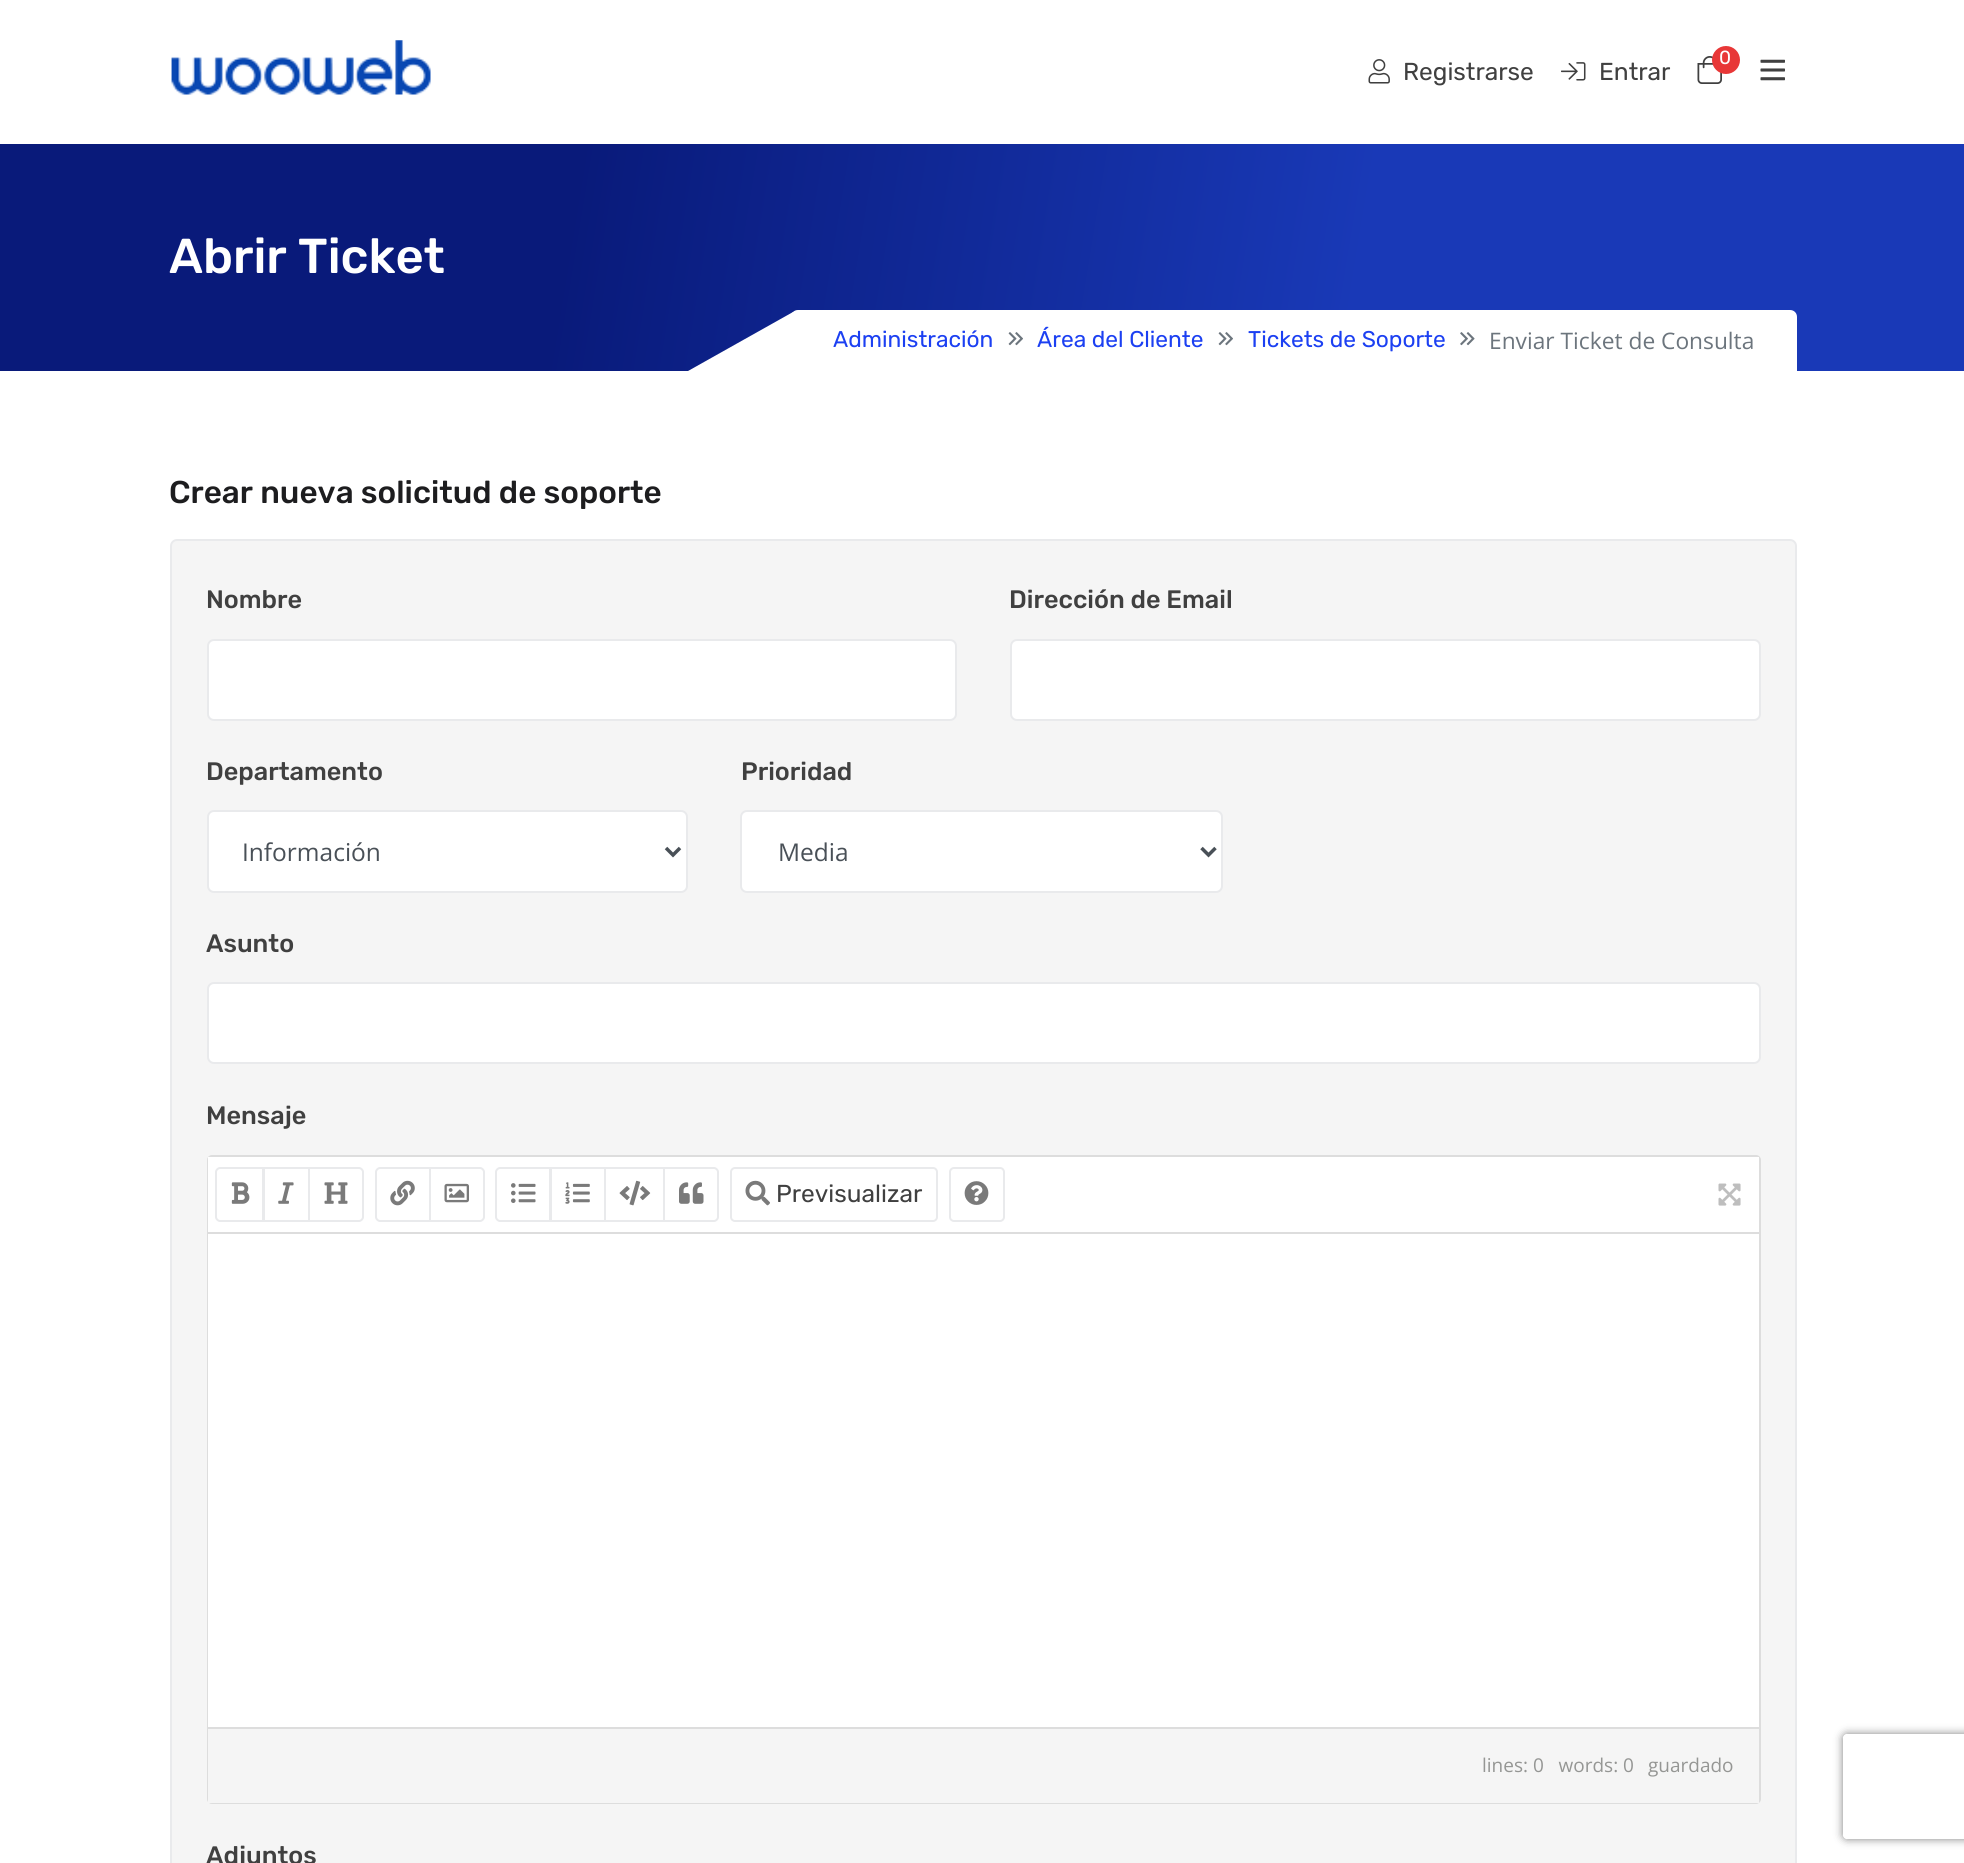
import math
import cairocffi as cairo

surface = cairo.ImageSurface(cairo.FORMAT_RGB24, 1964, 1863)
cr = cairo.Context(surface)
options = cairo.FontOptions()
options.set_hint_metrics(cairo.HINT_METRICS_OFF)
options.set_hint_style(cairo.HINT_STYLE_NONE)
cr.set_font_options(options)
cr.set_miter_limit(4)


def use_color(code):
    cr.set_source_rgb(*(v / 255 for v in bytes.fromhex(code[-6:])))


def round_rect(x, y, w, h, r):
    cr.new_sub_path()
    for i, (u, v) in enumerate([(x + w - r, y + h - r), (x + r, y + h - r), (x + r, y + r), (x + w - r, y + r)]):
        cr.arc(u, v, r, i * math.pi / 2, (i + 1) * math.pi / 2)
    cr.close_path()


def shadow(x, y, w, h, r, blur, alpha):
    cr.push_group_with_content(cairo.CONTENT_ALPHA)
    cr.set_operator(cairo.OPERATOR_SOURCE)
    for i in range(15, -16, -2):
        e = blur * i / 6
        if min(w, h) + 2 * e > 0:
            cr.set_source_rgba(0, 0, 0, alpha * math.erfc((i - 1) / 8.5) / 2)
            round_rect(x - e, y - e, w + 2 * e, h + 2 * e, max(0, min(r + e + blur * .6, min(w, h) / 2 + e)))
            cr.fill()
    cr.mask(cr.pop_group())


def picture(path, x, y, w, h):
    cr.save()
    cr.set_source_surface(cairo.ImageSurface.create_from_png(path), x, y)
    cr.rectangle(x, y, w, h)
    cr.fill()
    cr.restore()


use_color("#ffffff")
cr.paint()
picture("img1.png", 171, 40, 260, 55)
picture("img2.png", 1697, 56, 25, 28)
use_color("#e83737")
cr.arc(1726, 60, 14, 0, 2 * math.pi)
cr.fill()
cr.select_font_face("Rubik")
cr.set_font_size(19)
use_color("#ffffff")
cr.move_to(1719, 64)
cr.show_text("0")
picture("img3.png", 1368, 59, 22, 25)
cr.set_font_size(24.5)
use_color("#404040")
cr.move_to(1403, 80)
cr.show_text("Registrarse")
picture("img4.png", 1561, 62, 25, 19)
cr.move_to(1599, 80)
cr.show_text("Entrar")
picture("img5.png", 1760, 59, 25, 22)
gradient = cairo.LinearGradient(1958, 417, 7.5, 98)
gradient.add_color_stop_rgba(0.31, 0.098, 0.224, 0.718, 1)
gradient.add_color_stop_rgba(0.71, 0.035, 0.102, 0.478, 1)
cr.set_source(gradient)
cr.rectangle(0, 144, 1964, 227)
cr.fill()
cr.select_font_face("Rubik Medium")
cr.set_font_size(49)
use_color("#ffffff")
cr.move_to(169, 273)
cr.show_text("Abrir Ticket")
cr.new_path()
cr.move_to(798, 310)
cr.line_to(1790, 310)
cr.curve_to(1794, 310, 1797, 313, 1797, 317)
cr.line_to(1797, 371)
cr.line_to(791, 371)
cr.line_to(791, 317)
cr.curve_to(791, 313, 794, 310, 798, 310)
cr.close_path()
cr.fill()
cr.new_path()
cr.move_to(793, 371)
cr.line_to(688, 371)
cr.line_to(793, 312)
cr.close_path()
cr.fill()
cr.select_font_face("Rubik")
cr.set_font_size(22.75)
use_color("#1c40f2")
cr.move_to(833, 347)
cr.show_text("Administración")
picture("img6.png", 1008, 332, 15, 14)
cr.move_to(1037, 347)
cr.show_text("Área del Cliente")
picture("img6.png", 1218, 332, 15, 14)
cr.move_to(1248, 347)
cr.show_text("Tickets de Soporte")
picture("img7.png", 1460, 332, 15, 14)
cr.select_font_face("Open Sans")
use_color("#6c757d")
cr.move_to(1489, 349)
cr.show_text("Enviar Ticket de Consulta")
cr.select_font_face("Rubik Medium")
cr.set_font_size(31.5)
use_color("#1d1d1f")
cr.move_to(169, 503)
cr.show_text("Crear nueva solicitud de soporte")
use_color("#f5f5f5")
round_rect(171, 540, 1625, 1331, 6)
cr.fill_preserve()
use_color("#e9eaec")
cr.stroke()
cr.set_font_size(25.25)
use_color("#404040")
cr.move_to(206, 608)
cr.show_text("Nombre")
use_color("#ffffff")
round_rect(208, 640, 748, 80, 6)
cr.fill_preserve()
use_color("#e9eaec")
cr.stroke()
use_color("#404040")
cr.move_to(1009, 608)
cr.show_text("Dirección de Email")
use_color("#ffffff")
round_rect(1011, 640, 749, 80, 6)
cr.fill_preserve()
use_color("#e9eaec")
cr.stroke()
use_color("#404040")
cr.move_to(206, 780)
cr.show_text("Departamento")
use_color("#ffffff")
round_rect(208, 811, 479, 81, 6)
cr.fill_preserve()
use_color("#e9eaec")
cr.stroke()
cr.new_path()
cr.move_to(666, 848)
cr.line_to(673, 855)
cr.line_to(680, 848)
use_color("#495057")
cr.set_line_width(3.5)
cr.stroke()
cr.select_font_face("Open Sans")
cr.set_font_size(24.5)
cr.move_to(242, 861)
cr.show_text("Información")
cr.select_font_face("Rubik Medium")
cr.set_font_size(25.25)
use_color("#404040")
cr.move_to(741, 780)
cr.show_text("Prioridad")
use_color("#ffffff")
round_rect(741, 811, 481, 81, 6)
cr.fill_preserve()
use_color("#e9eaec")
cr.set_line_width(2)
cr.stroke()
cr.new_path()
cr.move_to(1201.5, 848)
cr.line_to(1208.5, 855)
cr.line_to(1215.5, 848)
use_color("#495057")
cr.set_line_width(3.5)
cr.stroke()
cr.select_font_face("Open Sans")
cr.set_font_size(24.5)
cr.move_to(778, 861)
cr.show_text("Media")
cr.select_font_face("Rubik Medium")
cr.set_font_size(25.25)
use_color("#404040")
cr.move_to(206, 952)
cr.show_text("Asunto")
use_color("#ffffff")
round_rect(208, 983, 1552, 80, 6)
cr.fill_preserve()
use_color("#e9eaec")
cr.set_line_width(2)
cr.stroke()
use_color("#404040")
cr.move_to(206, 1124)
cr.show_text("Mensaje")
round_rect(208, 1156, 1552, 647, 4)
use_color("#dddddd")
cr.stroke()
use_color("#ffffff")
cr.rectangle(208, 1157, 1551, 75)
cr.fill()
cr.new_path()
cr.move_to(220, 1168)
cr.line_to(263, 1168)
cr.line_to(263, 1221)
cr.line_to(220, 1221)
cr.curve_to(218, 1221, 216, 1219, 216, 1217)
cr.line_to(216, 1172)
cr.curve_to(216, 1170, 218, 1168, 220, 1168)
cr.close_path()
use_color("#e9eaec")
cr.stroke()
picture("img8.png", 231, 1182, 19, 22)
cr.rectangle(264, 1168, 45, 53)
cr.stroke()
picture("img9.png", 278, 1182, 16, 22)
use_color("#ffffff")
cr.new_path()
cr.move_to(309, 1168)
cr.line_to(359, 1168)
cr.curve_to(361, 1168, 363, 1170, 363, 1172)
cr.line_to(363, 1217)
cr.curve_to(363, 1219, 361, 1221, 359, 1221)
cr.line_to(309, 1221)
cr.close_path()
cr.fill_preserve()
use_color("#e9eaec")
cr.stroke()
picture("img10.png", 324, 1182, 24, 22)
cr.new_path()
cr.move_to(380, 1168)
cr.line_to(430, 1168)
cr.line_to(430, 1221)
cr.line_to(380, 1221)
cr.curve_to(378, 1221, 376, 1219, 376, 1217)
cr.line_to(376, 1172)
cr.curve_to(376, 1170, 378, 1168, 380, 1168)
cr.close_path()
cr.stroke()
picture("img11.png", 390, 1180, 25, 26)
use_color("#ffffff")
cr.new_path()
cr.move_to(430, 1168)
cr.line_to(480, 1168)
cr.curve_to(482, 1168, 484, 1170, 484, 1172)
cr.line_to(484, 1217)
cr.curve_to(484, 1219, 482, 1221, 480, 1221)
cr.line_to(430, 1221)
cr.close_path()
cr.fill_preserve()
use_color("#e9eaec")
cr.stroke()
picture("img12.png", 444, 1183, 25, 20)
cr.new_path()
cr.move_to(500, 1168)
cr.line_to(550, 1168)
cr.line_to(550, 1221)
cr.line_to(500, 1221)
cr.curve_to(498, 1221, 496, 1219, 496, 1217)
cr.line_to(496, 1172)
cr.curve_to(496, 1170, 498, 1168, 500, 1168)
cr.close_path()
cr.stroke()
picture("img13.png", 511, 1183, 25, 20)
cr.rectangle(551, 1168, 54, 53)
cr.stroke()
picture("img14.png", 565, 1182, 25, 22)
cr.rectangle(605, 1168, 59, 53)
cr.stroke()
picture("img15.png", 619, 1180, 32, 26)
use_color("#ffffff")
cr.new_path()
cr.move_to(664, 1168)
cr.line_to(714, 1168)
cr.curve_to(716, 1168, 718, 1170, 718, 1172)
cr.line_to(718, 1217)
cr.curve_to(718, 1219, 716, 1221, 714, 1221)
cr.line_to(664, 1221)
cr.close_path()
cr.fill_preserve()
use_color("#e9eaec")
cr.stroke()
picture("img16.png", 679, 1182, 25, 22)
round_rect(731, 1168, 206, 53, 4)
cr.stroke()
picture("img17.png", 745, 1180, 25, 26)
cr.select_font_face("Rubik")
cr.set_font_size(24.5)
use_color("#404040")
cr.move_to(776, 1202)
cr.show_text("Previsualizar")
round_rect(950, 1168, 54, 53, 4)
use_color("#e9eaec")
cr.stroke()
picture("img18.png", 964, 1181, 25, 24)
picture("img19.png", 1718, 1183, 23, 23)
use_color("#ffffff")
cr.rectangle(208, 1234, 1551, 493)
cr.fill()
use_color("#dddddd")
cr.rectangle(208, 1232, 1551, 2)
cr.fill()
cr.rectangle(208, 1727, 1551, 2)
cr.fill()
use_color("#f5f5f5")
cr.rectangle(208, 1729, 1551, 74)
cr.fill()
cr.select_font_face("Open Sans")
cr.set_font_size(19)
use_color("#959694")
cr.move_to(1482, 1772)
cr.show_text("lines: 0   words: 0")
cr.move_to(1648, 1772)
cr.show_text("guardado")
cr.select_font_face("Rubik Medium")
cr.set_font_size(25.25)
use_color("#404040")
cr.move_to(206, 1864)
cr.show_text("Adjuntos")
cr.save()
cr.set_fill_rule(cairo.FILL_RULE_EVEN_ODD)
cr.new_path()
cr.move_to(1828, 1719)
cr.line_to(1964, 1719)
cr.line_to(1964, 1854)
cr.line_to(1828, 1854)
cr.close_path()
cr.move_to(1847, 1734)
cr.line_to(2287, 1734)
cr.curve_to(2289, 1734, 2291, 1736, 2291, 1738)
cr.line_to(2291, 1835)
cr.curve_to(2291, 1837, 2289, 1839, 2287, 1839)
cr.line_to(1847, 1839)
cr.curve_to(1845, 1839, 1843, 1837, 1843, 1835)
cr.line_to(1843, 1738)
cr.curve_to(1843, 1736, 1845, 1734, 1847, 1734)
cr.close_path()
cr.clip()
use_color("#808080")
shadow(1843, 1734, 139, 105, 4, 4.5, 1)
cr.restore()
surface.write_to_png("result.png")
